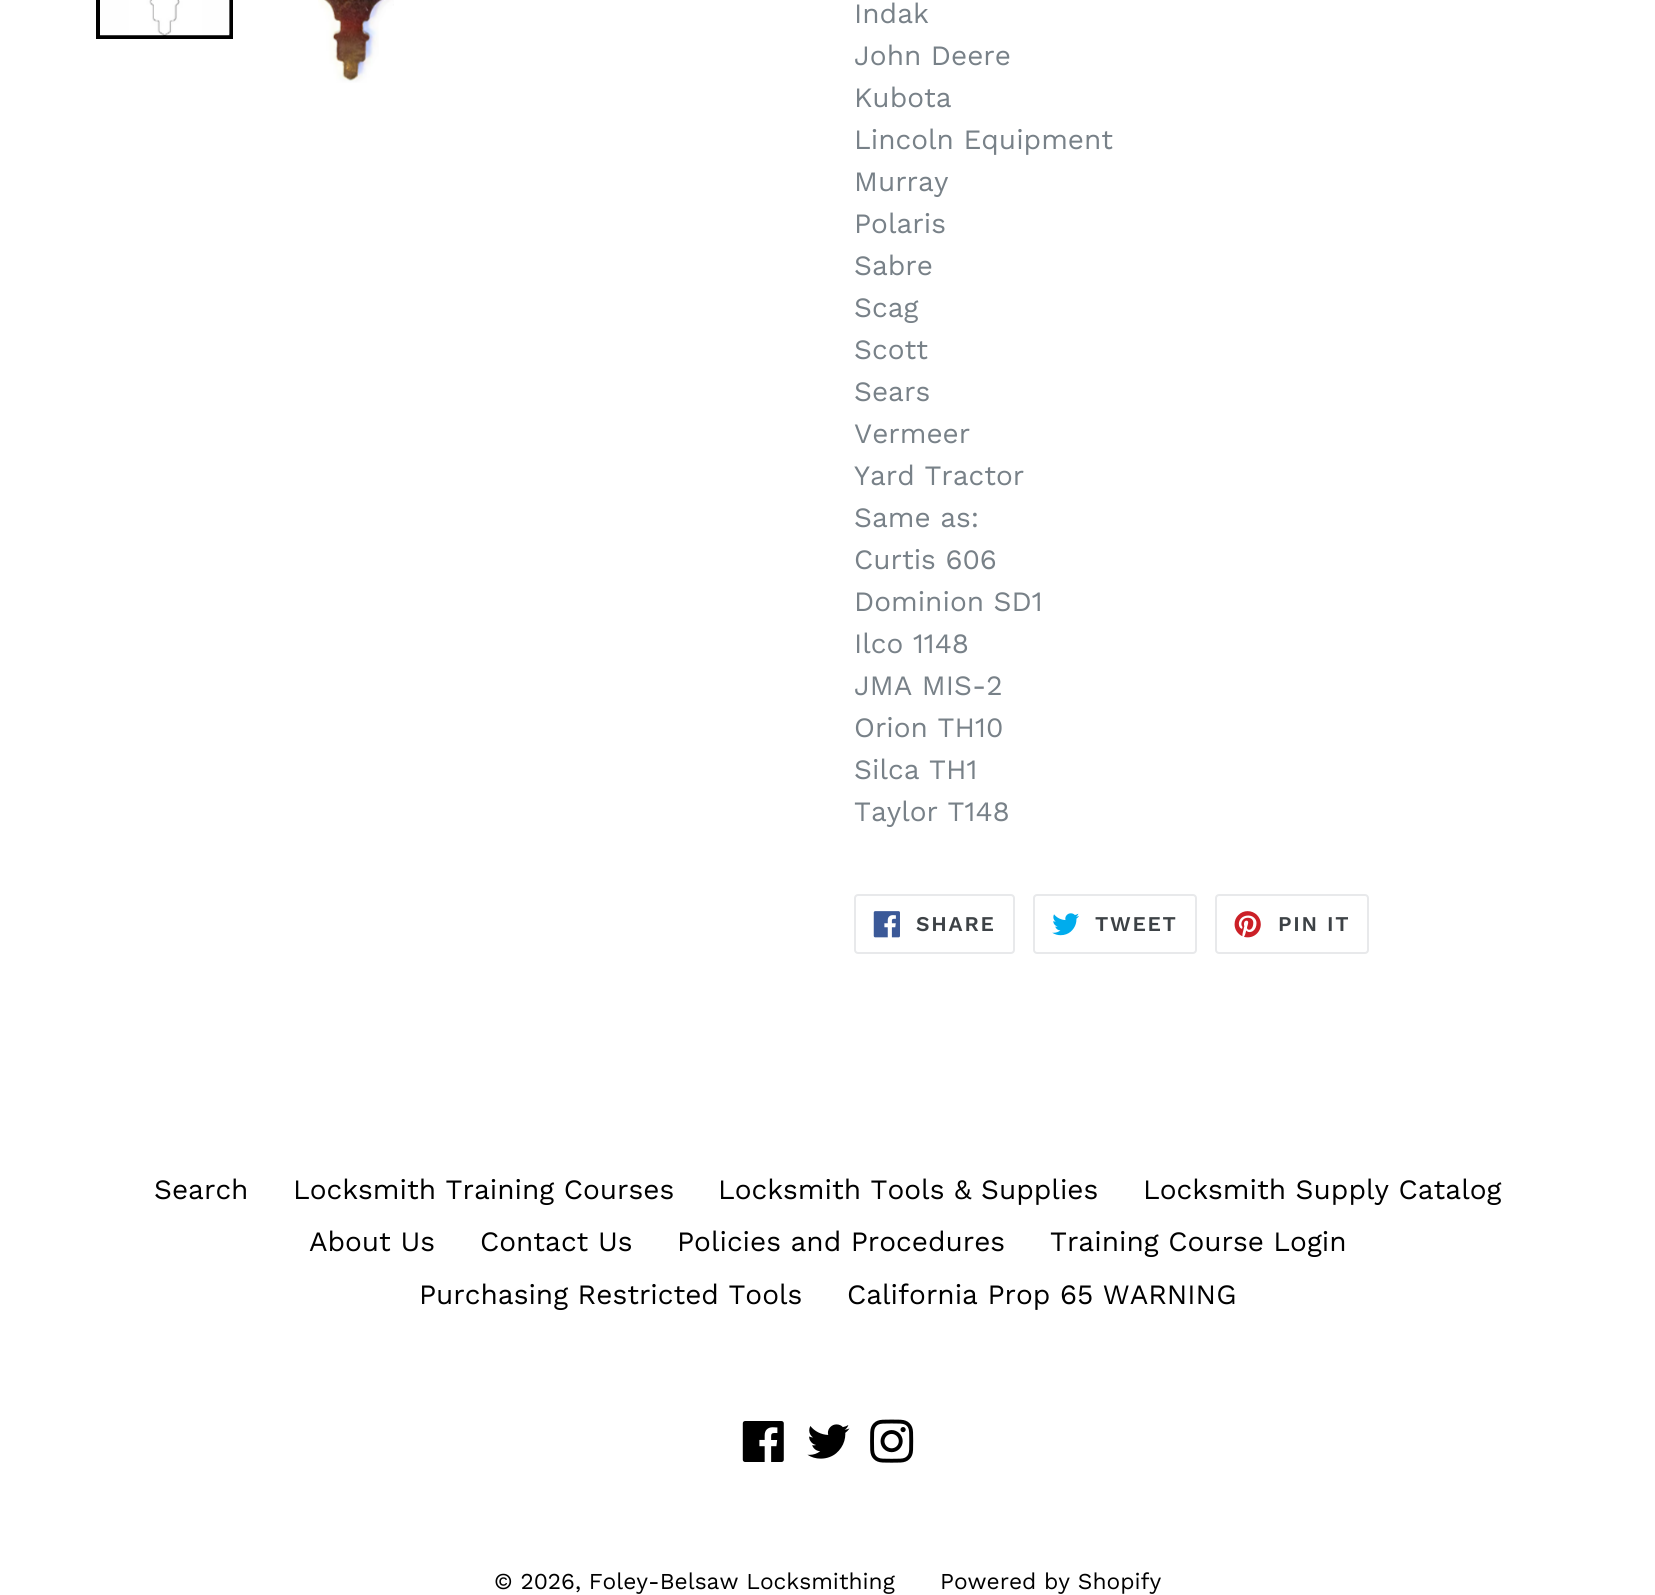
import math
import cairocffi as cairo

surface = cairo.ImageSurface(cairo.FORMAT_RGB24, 1655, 1595)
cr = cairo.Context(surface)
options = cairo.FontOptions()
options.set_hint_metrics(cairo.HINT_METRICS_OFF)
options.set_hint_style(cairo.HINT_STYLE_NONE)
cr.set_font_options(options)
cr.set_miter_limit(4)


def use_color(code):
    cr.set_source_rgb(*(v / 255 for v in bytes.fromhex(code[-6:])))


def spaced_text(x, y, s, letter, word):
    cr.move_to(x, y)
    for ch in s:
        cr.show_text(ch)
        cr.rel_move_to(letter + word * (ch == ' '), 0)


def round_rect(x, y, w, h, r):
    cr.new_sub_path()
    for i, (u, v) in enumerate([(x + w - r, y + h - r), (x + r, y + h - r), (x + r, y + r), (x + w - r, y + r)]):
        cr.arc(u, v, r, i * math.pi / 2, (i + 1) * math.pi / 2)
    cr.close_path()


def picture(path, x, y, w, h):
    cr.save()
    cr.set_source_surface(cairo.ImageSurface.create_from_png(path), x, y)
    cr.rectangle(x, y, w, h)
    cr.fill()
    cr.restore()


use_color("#ffffff")
cr.paint()
cr.rectangle(98, -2, 133, 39)
use_color("#000000")
cr.set_line_width(4)
cr.stroke()
picture("img1.png", 100, 0, 130, 36)
picture("img2.png", 318, 0, 76, 83)
cr.select_font_face("Work Sans")
cr.set_font_size(28)
use_color("#788188")
cr.move_to(854, 23)
cr.show_text("Indak")
cr.move_to(854, 65)
cr.show_text("John Deere")
cr.move_to(854, 107)
cr.show_text("Kubota")
cr.move_to(854, 149)
cr.show_text("Lincoln Equipment")
cr.move_to(854, 191)
cr.show_text("Murray")
cr.move_to(854, 233)
cr.show_text("Polaris")
cr.move_to(854, 275)
cr.show_text("Sabre")
cr.move_to(854, 317)
cr.show_text("Scag")
cr.move_to(854, 359)
cr.show_text("Scott")
cr.move_to(854, 401)
cr.show_text("Sears")
cr.move_to(854, 443)
cr.show_text("Vermeer")
cr.move_to(854, 485)
cr.show_text("Yard Tractor")
cr.move_to(854, 527)
cr.show_text("Same as:")
cr.move_to(854, 569)
cr.show_text("Curtis 606")
cr.move_to(854, 611)
cr.show_text("Dominion SD1")
cr.move_to(854, 653)
cr.show_text("Ilco 1148")
cr.move_to(854, 695)
cr.show_text("JMA MIS-2")
cr.move_to(854, 737)
cr.show_text("Orion TH10")
cr.move_to(854, 779)
cr.show_text("Silca TH1")
cr.move_to(854, 821)
cr.show_text("Taylor T148")
round_rect(855, 895, 159, 58, 3)
use_color("#e8e9eb")
cr.set_line_width(2)
cr.stroke()
picture("img3.png", 873, 911, 27, 27)
cr.select_font_face("Work Sans SemiBold")
cr.set_font_size(21)
use_color("#3d4246")
spaced_text(916, 931, "SHARE", 1.75, 0)
round_rect(1034, 895, 162, 58, 3)
use_color("#e8e9eb")
cr.stroke()
picture("img4.png", 1052, 913, 27, 23)
use_color("#3d4246")
spaced_text(1095, 931, "TWEET", 1.75, 0)
round_rect(1216, 895, 152, 58, 3)
use_color("#e8e9eb")
cr.stroke()
picture("img5.png", 1234, 911, 27, 27)
use_color("#3d4246")
spaced_text(1278, 931, "PIN IT", 1.75, 0)
cr.select_font_face("Work Sans")
cr.set_font_size(28)
use_color("#000000")
cr.move_to(154, 1199)
cr.show_text("Search")
cr.move_to(293, 1199)
cr.show_text("Locksmith Training Courses")
cr.move_to(718, 1199)
cr.show_text("Locksmith Tools & Supplies")
cr.move_to(1143, 1199)
cr.show_text("Locksmith Supply Catalog")
cr.move_to(309, 1251)
cr.show_text("About Us")
cr.move_to(480, 1251)
cr.show_text("Contact Us")
cr.move_to(677, 1251)
cr.show_text("Policies and Procedures")
cr.move_to(1050, 1251)
cr.show_text("Training Course Login")
cr.move_to(419, 1304)
cr.show_text("Purchasing Restricted Tools")
cr.move_to(847, 1304)
cr.show_text("California Prop 65 WARNING")
picture("img6.png", 742, 1421, 42, 41)
picture("img7.png", 807, 1424, 43, 35)
picture("img8.png", 870, 1419, 44, 44)
cr.set_font_size(22.75)
cr.move_to(494, 1589)
cr.show_text("© 2026, Foley-Belsaw Locksmithing")
cr.move_to(940, 1589)
cr.show_text("Powered by Shopify")
surface.write_to_png("result.png")
